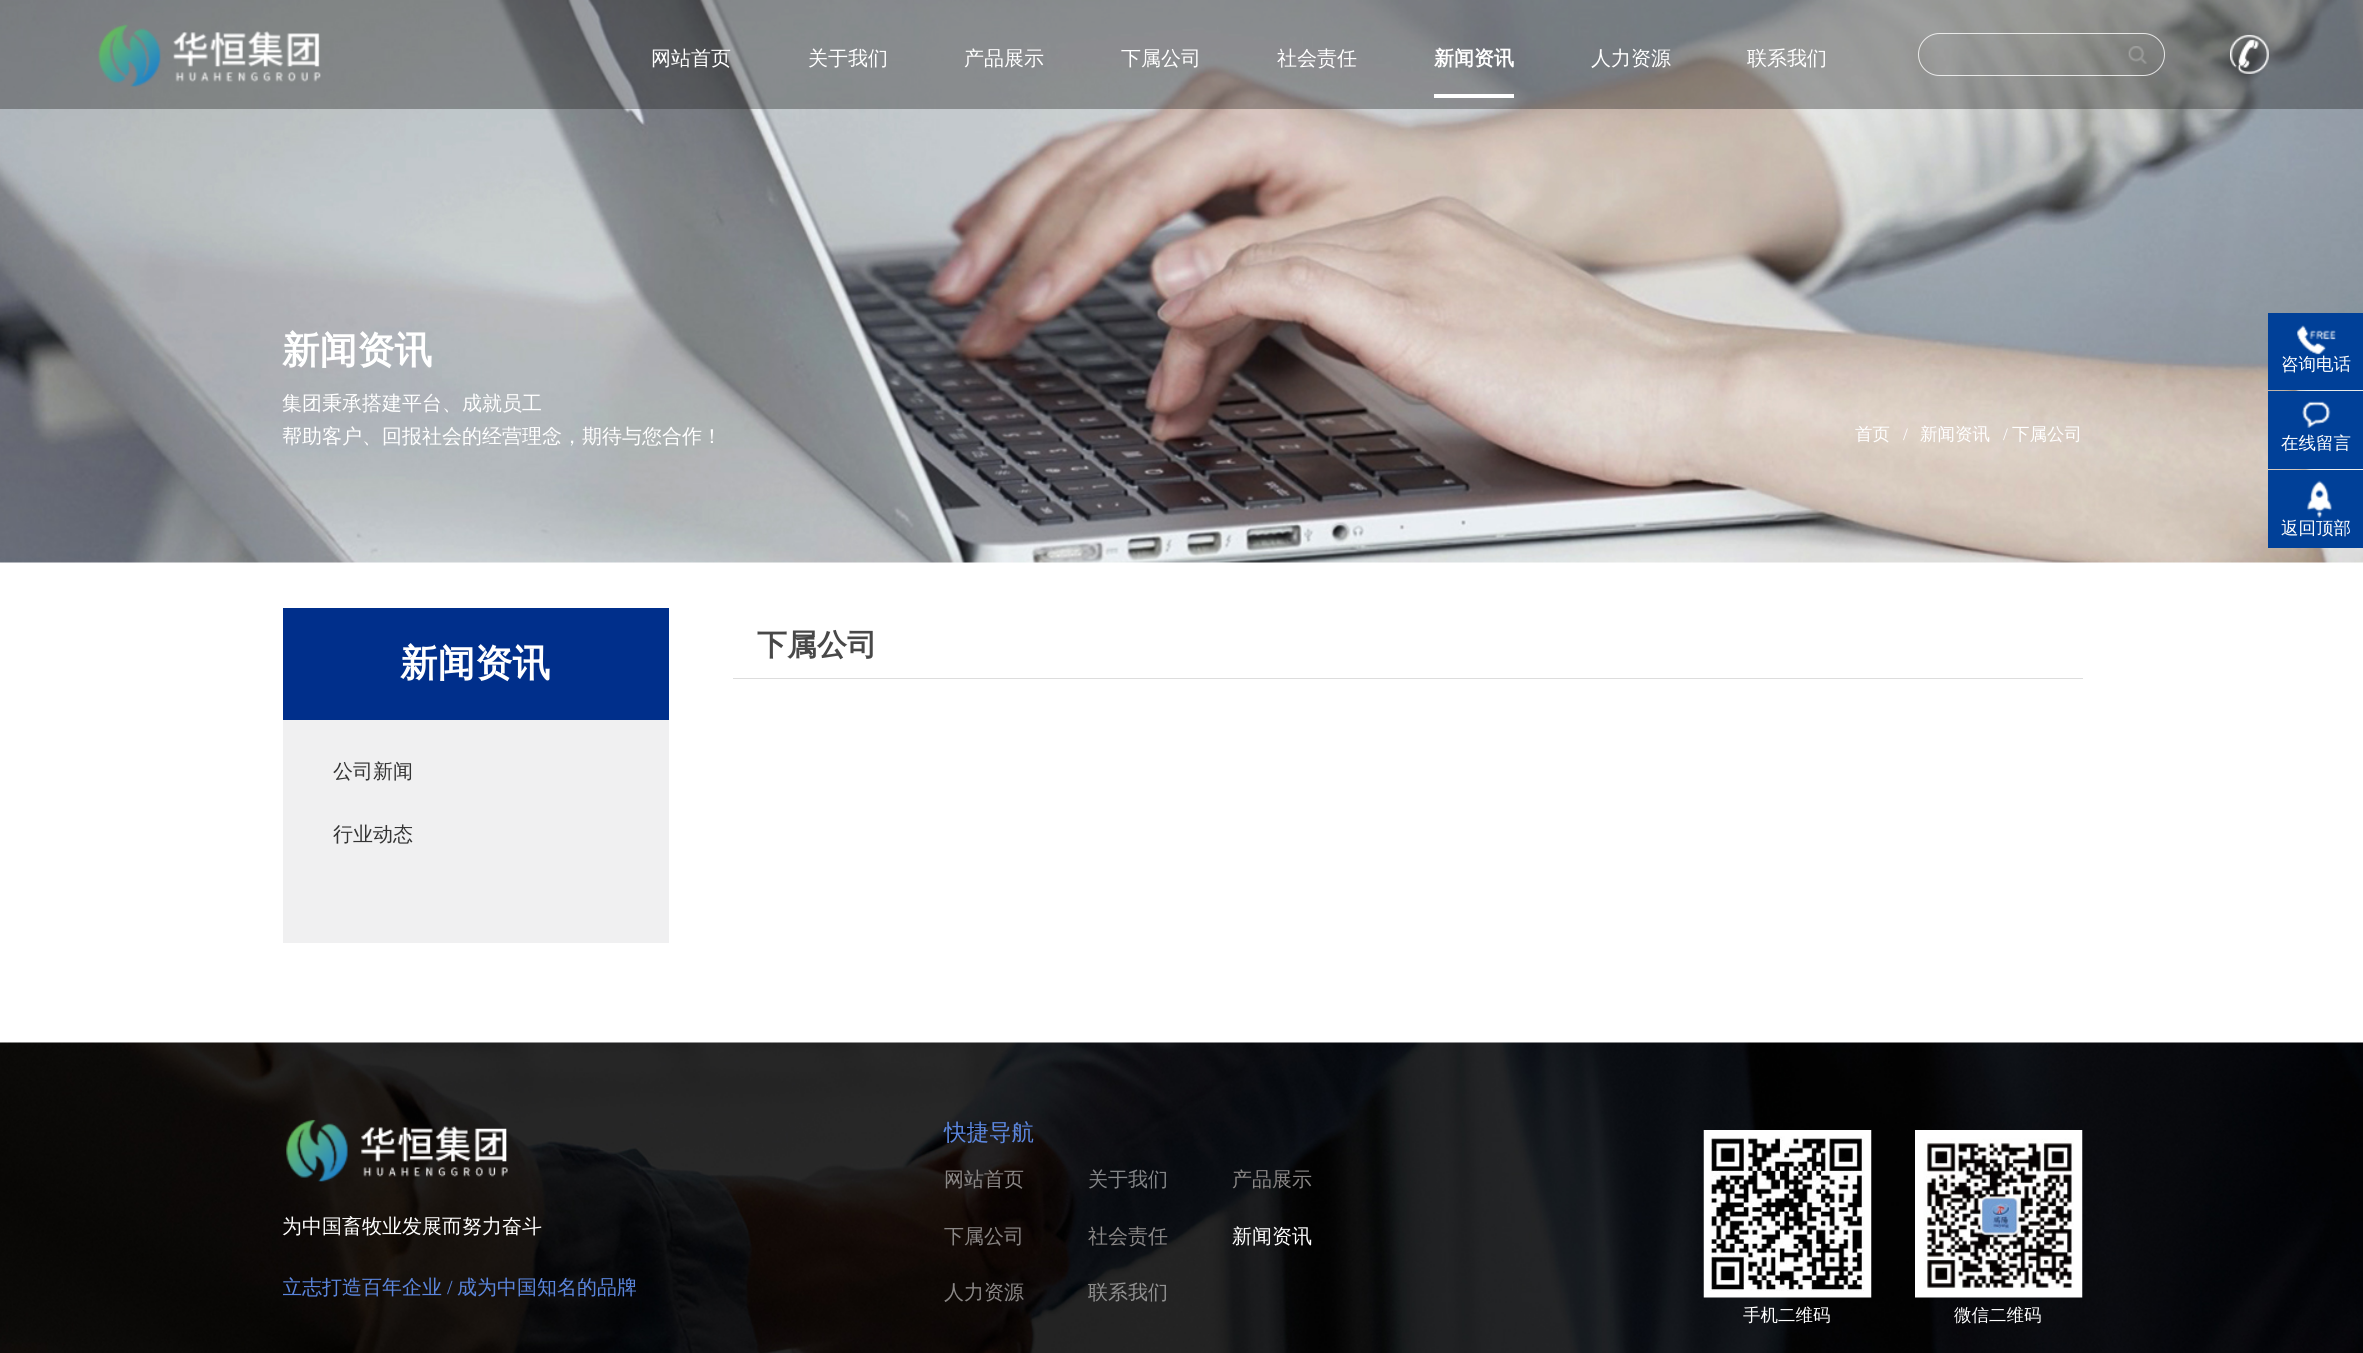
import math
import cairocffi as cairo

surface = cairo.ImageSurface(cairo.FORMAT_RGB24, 2363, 1353)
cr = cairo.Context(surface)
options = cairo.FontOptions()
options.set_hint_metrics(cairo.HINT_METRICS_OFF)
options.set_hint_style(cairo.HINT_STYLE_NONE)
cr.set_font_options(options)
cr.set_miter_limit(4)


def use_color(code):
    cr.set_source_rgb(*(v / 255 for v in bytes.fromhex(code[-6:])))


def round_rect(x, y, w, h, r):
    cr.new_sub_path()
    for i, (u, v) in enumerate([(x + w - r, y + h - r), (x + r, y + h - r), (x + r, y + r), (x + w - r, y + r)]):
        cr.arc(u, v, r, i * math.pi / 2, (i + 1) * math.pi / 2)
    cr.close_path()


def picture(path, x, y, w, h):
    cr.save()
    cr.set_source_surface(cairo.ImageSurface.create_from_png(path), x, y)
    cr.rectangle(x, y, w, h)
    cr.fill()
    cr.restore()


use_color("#ffffff")
cr.paint()
picture("img4.png", 0, 0, 2363, 563)
cr.set_source_rgba(0.106, 0.106, 0.106, 0.35)
cr.rectangle(0, 0, 2363, 109)
cr.fill()
picture("img1.png", 98, 24, 223, 63)
cr.select_font_face("WenQuanYi Zen Hei Medium")
cr.set_font_size(20)
use_color("#ffffff")
cr.move_to(651, 65)
cr.show_text("网站首页")
cr.move_to(808, 65)
cr.show_text("关于我们")
cr.move_to(964, 65)
cr.show_text("产品展示")
cr.move_to(1121, 65)
cr.show_text("下属公司")
cr.move_to(1277, 65)
cr.show_text("社会责任")
cr.select_font_face("WenQuanYi Zen Hei", cairo.FONT_SLANT_NORMAL, cairo.FONT_WEIGHT_BOLD)
cr.move_to(1434, 65)
cr.show_text("新闻资讯")
cr.rectangle(1434, 94, 80, 4)
cr.fill()
cr.select_font_face("WenQuanYi Zen Hei Medium")
cr.move_to(1591, 65)
cr.show_text("人力资源")
cr.move_to(1747, 65)
cr.show_text("联系我们")
round_rect(1918.5, 33.5, 246, 42, 21)
cr.set_source_rgba(1, 1, 1, 0.8)
cr.set_line_width(1)
cr.stroke()
picture("img2.png", 2128, 46, 19, 18)
picture("img3.png", 2230, 34, 39, 40)
cr.select_font_face("WenQuanYi Zen Hei", cairo.FONT_SLANT_NORMAL, cairo.FONT_WEIGHT_BOLD)
cr.set_font_size(37.5)
use_color("#ffffff")
cr.move_to(282, 363)
cr.show_text("新闻资讯")
cr.select_font_face("WenQuanYi Zen Hei Medium")
cr.set_font_size(20)
cr.move_to(282, 410)
cr.show_text("集团秉承搭建平台、成就员工")
cr.move_to(282, 443)
cr.show_text("帮助客户、回报社会的经营理念，期待与您合作！")
cr.set_font_size(17.5)
cr.move_to(1855, 440)
cr.show_text("首页")
cr.select_font_face("Liberation Serif")
cr.move_to(1903, 440)
cr.show_text("/")
cr.select_font_face("WenQuanYi Zen Hei Medium")
cr.move_to(1920, 440)
cr.show_text("新闻资讯")
cr.select_font_face("Liberation Serif")
cr.move_to(2003, 440)
cr.show_text("/")
cr.select_font_face("WenQuanYi Zen Hei Medium")
cr.move_to(2012, 440)
cr.show_text("下属公司")
use_color("#004098")
cr.rectangle(2268, 313, 95, 77)
cr.fill()
picture("img5.png", 2297, 325, 39, 30)
use_color("#ffffff")
cr.move_to(2281, 370)
cr.show_text("咨询电话")
use_color("#004098")
cr.rectangle(2268, 391, 95, 78)
cr.fill()
picture("img6.png", 2302, 401, 29, 27)
use_color("#ffffff")
cr.move_to(2281, 449)
cr.show_text("在线留言")
use_color("#004098")
cr.rectangle(2268, 470, 95, 78)
cr.fill()
picture("img7.png", 2307, 480, 25, 38)
use_color("#ffffff")
cr.move_to(2281, 534)
cr.show_text("返回顶部")
use_color("#002f8b")
cr.rectangle(283, 608, 386, 112)
cr.fill()
cr.select_font_face("WenQuanYi Zen Hei", cairo.FONT_SLANT_NORMAL, cairo.FONT_WEIGHT_BOLD)
cr.set_font_size(37.5)
use_color("#ffffff")
cr.move_to(400, 676)
cr.show_text("新闻资讯")
use_color("#f0f0f1")
cr.rectangle(283, 720, 386, 223)
cr.fill()
cr.select_font_face("WenQuanYi Zen Hei Medium")
cr.set_font_size(20)
use_color("#333333")
cr.move_to(333, 778)
cr.show_text("公司新闻")
cr.move_to(333, 841)
cr.show_text("行业动态")
use_color("#dddddd")
cr.rectangle(733, 678, 1350, 1)
cr.fill()
cr.select_font_face("WenQuanYi Zen Hei", cairo.FONT_SLANT_NORMAL, cairo.FONT_WEIGHT_BOLD)
cr.set_font_size(30)
use_color("#484848")
cr.move_to(757, 655)
cr.show_text("下属公司")
picture("img8.png", 0, 1042, 2363, 311)
picture("img9.png", 286, 1119, 222, 63)
cr.select_font_face("WenQuanYi Zen Hei Medium")
cr.set_font_size(20)
use_color("#ffffff")
cr.move_to(282, 1233)
cr.show_text("为中国畜牧业发展而努力奋斗")
cr.save()
cr.rectangle(283, 1080, 1800, 255)
cr.clip()
use_color("#5b86de")
cr.move_to(282, 1294)
cr.show_text("立志打造百年企业")
cr.restore()
cr.select_font_face("Liberation Serif")
use_color("#5b86de")
cr.move_to(447, 1294)
cr.show_text("/")
cr.select_font_face("WenQuanYi Zen Hei Medium")
cr.move_to(457, 1294)
cr.show_text("成为中国知名的品牌")
cr.set_font_size(22.5)
cr.move_to(944, 1140)
cr.show_text("快捷导航")
cr.set_font_size(20)
use_color("#8a8786")
cr.move_to(944, 1186)
cr.show_text("网站首页")
use_color("#848688")
cr.move_to(1088, 1186)
cr.show_text("关于我们")
use_color("#8a8786")
cr.move_to(1232, 1186)
cr.show_text("产品展示")
cr.move_to(944, 1243)
cr.show_text("下属公司")
cr.move_to(1088, 1243)
cr.show_text("社会责任")
use_color("#ffffff")
cr.move_to(1232, 1243)
cr.show_text("新闻资讯")
use_color("#8a8786")
cr.move_to(944, 1299)
cr.show_text("人力资源")
use_color("#919191")
cr.move_to(1088, 1299)
cr.show_text("联系我们")
picture("img10.png", 1703, 1130, 169, 168)
cr.set_font_size(17.5)
use_color("#ffffff")
cr.move_to(1743, 1321)
cr.show_text("手机二维码")
picture("img11.png", 1915, 1130, 168, 168)
cr.move_to(1954, 1321)
cr.show_text("微信二维码")
surface.write_to_png("result.png")
